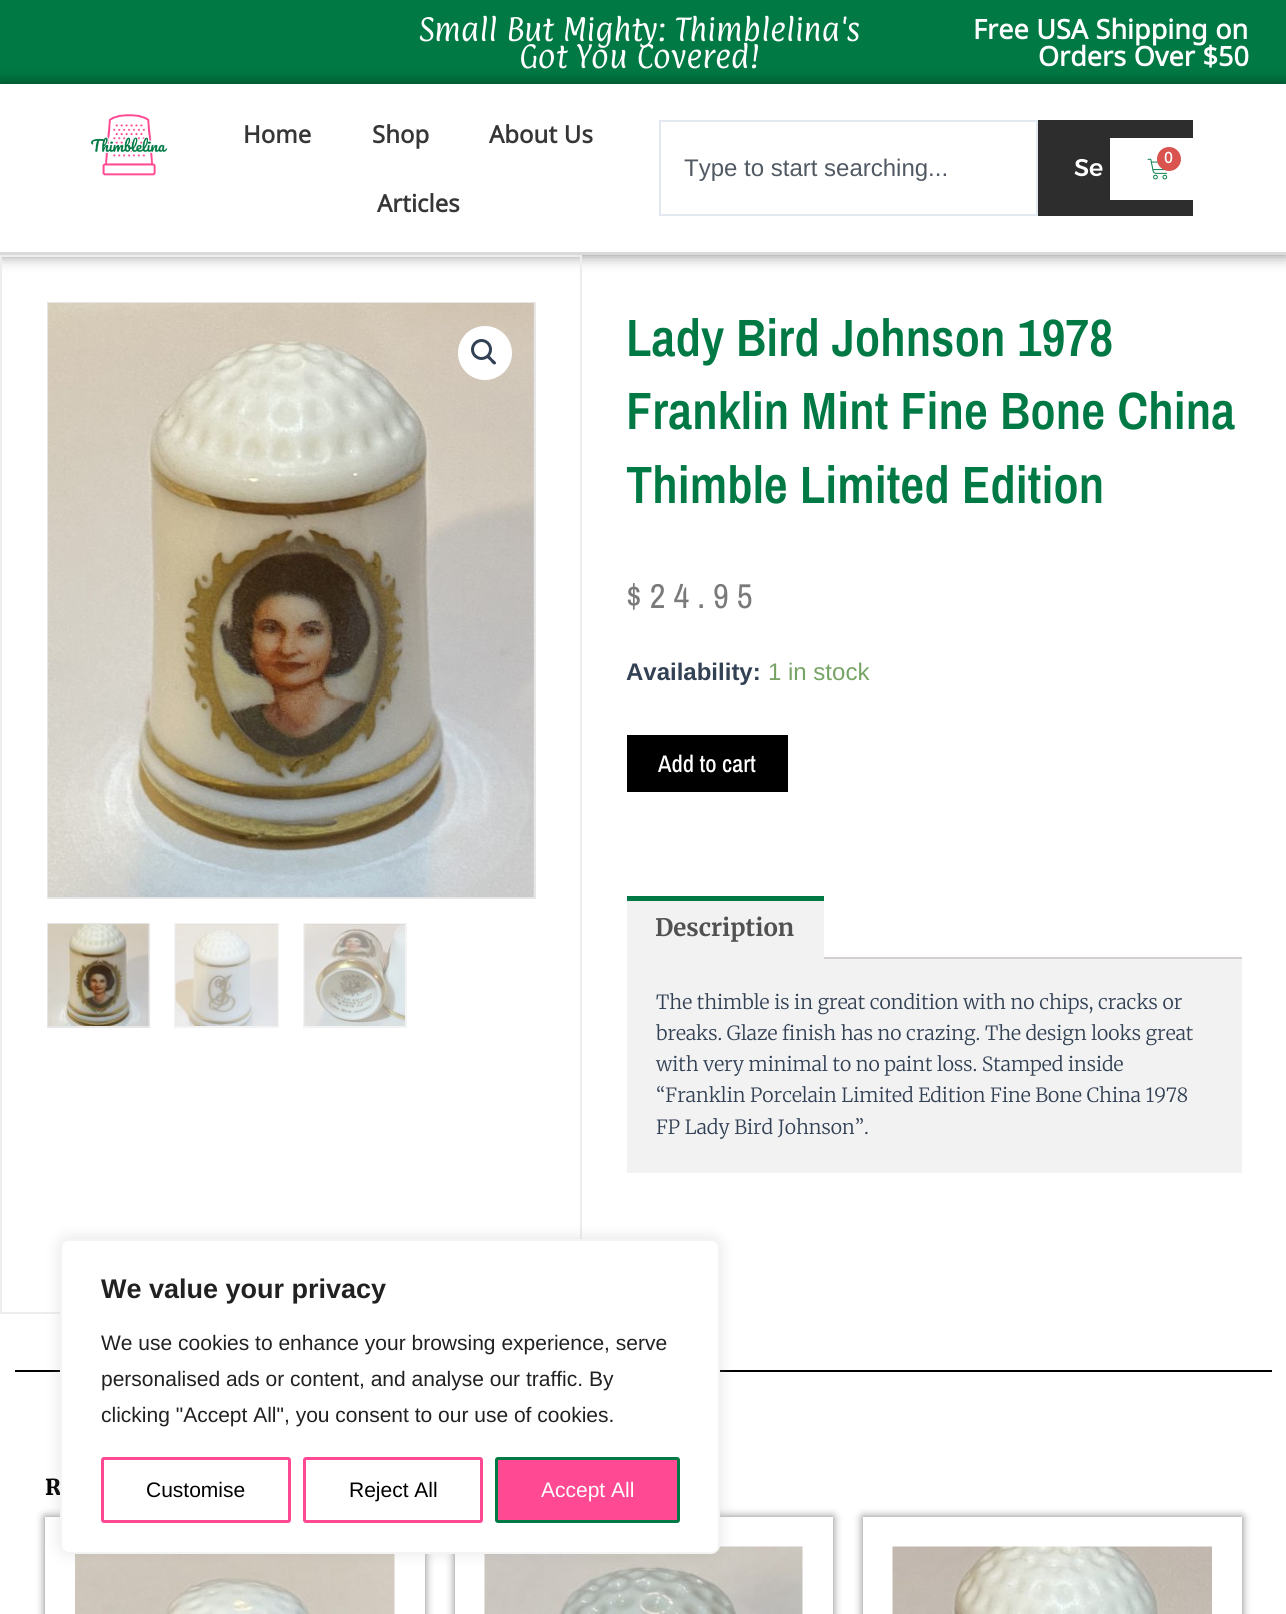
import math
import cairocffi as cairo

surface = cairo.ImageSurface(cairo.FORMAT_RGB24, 1286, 1614)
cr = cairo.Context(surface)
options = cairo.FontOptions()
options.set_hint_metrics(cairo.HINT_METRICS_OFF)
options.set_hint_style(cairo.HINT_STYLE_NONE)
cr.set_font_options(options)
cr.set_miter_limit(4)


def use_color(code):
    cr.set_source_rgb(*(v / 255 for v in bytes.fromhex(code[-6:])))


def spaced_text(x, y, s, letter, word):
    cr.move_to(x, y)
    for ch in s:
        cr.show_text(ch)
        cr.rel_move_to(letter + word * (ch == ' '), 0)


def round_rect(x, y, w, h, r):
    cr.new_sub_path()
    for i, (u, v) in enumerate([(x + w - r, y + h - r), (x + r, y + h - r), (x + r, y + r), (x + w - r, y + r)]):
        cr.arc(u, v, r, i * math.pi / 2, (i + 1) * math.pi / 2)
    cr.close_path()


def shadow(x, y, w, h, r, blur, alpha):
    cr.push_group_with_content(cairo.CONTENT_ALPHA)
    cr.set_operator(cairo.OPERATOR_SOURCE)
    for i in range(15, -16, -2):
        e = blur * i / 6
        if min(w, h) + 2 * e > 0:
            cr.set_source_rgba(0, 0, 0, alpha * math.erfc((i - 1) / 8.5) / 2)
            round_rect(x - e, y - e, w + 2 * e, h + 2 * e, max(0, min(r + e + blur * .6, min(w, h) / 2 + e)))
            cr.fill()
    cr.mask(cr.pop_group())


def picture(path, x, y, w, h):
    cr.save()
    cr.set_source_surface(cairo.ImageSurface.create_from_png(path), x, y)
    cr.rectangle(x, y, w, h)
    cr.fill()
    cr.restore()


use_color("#ffffff")
cr.paint()
use_color("#007944")
cr.rectangle(0, 0, 1286, 84)
cr.fill()
cr.select_font_face("Paprika")
cr.set_font_size(27)
use_color("#ffffff")
cr.move_to(419, 41)
cr.show_text("Small But Mighty: Thimblelina's")
cr.move_to(519, 68)
cr.show_text("Got You Covered!")
cr.select_font_face("Noto Sans Pau Cin Hau", cairo.FONT_SLANT_NORMAL, cairo.FONT_WEIGHT_BOLD)
cr.move_to(973, 39)
cr.show_text("Free USA Shipping on")
cr.move_to(1038, 66)
cr.show_text("Orders Over $50")
cr.save()
cr.set_fill_rule(cairo.FILL_RULE_EVEN_ODD)
cr.new_path()
cr.move_to(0, 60)
cr.line_to(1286, 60)
cr.line_to(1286, 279)
cr.line_to(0, 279)
cr.close_path()
cr.move_to(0, 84)
cr.line_to(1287, 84)
cr.line_to(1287, 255)
cr.line_to(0, 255)
cr.close_path()
cr.clip()
use_color("#000000")
shadow(0, 84, 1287, 171, 0, 7.5, 0.5)
cr.restore()
use_color("#dadada")
cr.rectangle(0, 252, 1286, 3)
cr.fill()
picture("img1.png", 91, 114, 77, 62)
cr.set_font_size(24)
use_color("#363636")
cr.move_to(243, 143)
cr.show_text("Home")
cr.move_to(372, 143)
cr.show_text("Shop")
cr.move_to(489, 143)
cr.show_text("About Us")
cr.move_to(377, 212)
cr.show_text("Articles")
cr.rectangle(660, 121, 377, 94)
use_color("#e2e8f0")
cr.stroke()
cr.select_font_face("Liberation Sans")
use_color("#515962")
cr.move_to(684, 176)
cr.show_text("Type to start searching...")
use_color("#2d2d2d")
cr.rectangle(1038, 120, 155, 96)
cr.fill()
cr.select_font_face("Alexandria Medium")
use_color("#ffffff")
cr.move_to(1074, 176)
cr.show_text("Se")
cr.rectangle(1110, 138, 83, 62)
cr.fill()
picture("img2.png", 1147, 158, 21, 22)
use_color("#d9534f")
cr.arc(1169, 159, 12, 0, 2 * math.pi)
cr.fill()
cr.select_font_face("Noto Sans Pau Cin Hau", cairo.FONT_SLANT_NORMAL, cairo.FONT_WEIGHT_BOLD)
cr.set_font_size(15)
use_color("#ffffff")
cr.move_to(1164, 163)
cr.show_text("0")
cr.rectangle(1, 256, 580, 1057)
use_color("#ededed")
cr.stroke()
cr.rectangle(48, 303, 487, 595)
use_color("#e6e6e6")
cr.stroke()
picture("img4.png", 533, 303, 1, 587)
picture("img3.png", 48, 303, 486, 594)
use_color("#ffffff")
cr.arc(485, 353, 27, 0, 2 * math.pi)
cr.fill()
cr.arc(481.5, 349.5, 9, 0, 2 * math.pi)
use_color("#334155")
cr.set_line_width(3)
cr.stroke()
cr.new_path()
cr.move_to(487, 356)
cr.curve_to(489, 354, 491.5, 358, 492.5, 359)
cr.curve_to(493.5, 360, 497.5, 362.5, 495.5, 364)
cr.curve_to(494, 366, 491, 362, 490.5, 361)
cr.curve_to(489.5, 360, 485.5, 357.5, 487, 356)
cr.close_path()
cr.fill()
cr.rectangle(48, 924, 101, 103)
use_color("#e6e6e6")
cr.set_line_width(2)
cr.stroke()
picture("img5.png", 48, 924, 101, 102)
cr.rectangle(175, 924, 103, 103)
use_color("#f3f3f3")
cr.stroke()
picture("img6.png", 175, 924, 103, 102)
cr.rectangle(304, 924, 102, 103)
cr.stroke()
picture("img7.png", 304, 924, 101, 102)
cr.select_font_face("Archivo Narrow SemiBold")
cr.set_font_size(52.5)
use_color("#007944")
cr.move_to(626, 356)
cr.show_text("Lady Bird Johnson 1978")
cr.move_to(626, 429)
cr.show_text("Franklin Mint Fine Bone China")
cr.move_to(626, 503)
cr.show_text("Thimble Limited Edition")
cr.select_font_face("Archivo Narrow")
cr.set_font_size(34.5)
use_color("#7a7a7a")
spaced_text(626, 608, "$24.95", 8, 0)
cr.select_font_face("Liberation Sans", cairo.FONT_SLANT_NORMAL, cairo.FONT_WEIGHT_BOLD)
cr.set_font_size(24)
use_color("#334155")
cr.move_to(626, 680)
cr.show_text("Availability:")
cr.select_font_face("Liberation Sans")
use_color("#77a464")
cr.move_to(768, 680)
cr.show_text("1 in stock")
use_color("#000000")
cr.rectangle(627, 735, 161, 57)
cr.fill()
cr.select_font_face("Archivo Narrow Medium")
use_color("#ffffff")
cr.move_to(658, 772)
cr.show_text("Add to cart")
use_color("#f2f2f2")
cr.rectangle(627, 901, 197, 58)
cr.fill()
use_color("#007944")
cr.rectangle(627, 896, 197, 5)
cr.fill()
cr.select_font_face("Merriweather", cairo.FONT_SLANT_NORMAL, cairo.FONT_WEIGHT_BOLD)
use_color("#515151")
cr.move_to(655, 936)
cr.show_text("Description")
use_color("#f2f2f2")
cr.rectangle(627, 959, 615, 214)
cr.fill()
use_color("#d3ced2")
cr.rectangle(824, 957, 418, 2)
cr.fill()
cr.select_font_face("Merriweather Light")
cr.set_font_size(19.5)
use_color("#334155")
cr.move_to(656, 1009)
cr.show_text("The thimble is in great condition with no chips, cracks or")
cr.move_to(656, 1040)
cr.show_text("breaks. Glaze finish has no crazing. The design looks great")
cr.move_to(656, 1071)
cr.show_text("with very minimal to no paint loss. Stamped inside")
cr.move_to(656, 1102)
cr.show_text("“Franklin Porcelain Limited Edition Fine Bone China 1978")
cr.move_to(656, 1134)
cr.show_text("FP Lady Bird Johnson”.")
use_color("#000000")
cr.rectangle(15, 1370, 45, 2)
cr.fill()
cr.rectangle(720, 1370, 552, 2)
cr.fill()
cr.select_font_face("Merriweather Black")
cr.set_font_size(22)
cr.move_to(45, 1495)
cr.show_text("R")
cr.save()
cr.set_fill_rule(cairo.FILL_RULE_EVEN_ODD)
cr.new_path()
cr.move_to(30, 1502)
cr.line_to(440, 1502)
cr.line_to(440, 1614)
cr.line_to(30, 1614)
cr.close_path()
cr.move_to(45, 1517)
cr.line_to(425, 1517)
cr.line_to(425, 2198)
cr.line_to(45, 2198)
cr.close_path()
cr.clip()
use_color("#000000")
shadow(45, 1517, 380, 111, 0, 4.5, 0.5)
cr.restore()
picture("img8.png", 75, 1554, 320, 60)
cr.save()
cr.set_fill_rule(cairo.FILL_RULE_EVEN_ODD)
cr.new_path()
cr.move_to(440, 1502)
cr.line_to(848, 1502)
cr.line_to(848, 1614)
cr.line_to(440, 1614)
cr.close_path()
cr.move_to(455, 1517)
cr.line_to(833, 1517)
cr.line_to(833, 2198)
cr.line_to(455, 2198)
cr.close_path()
cr.clip()
use_color("#000000")
shadow(455, 1517, 378, 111, 0, 4.5, 0.5)
cr.restore()
picture("img9.png", 484, 1546, 319, 68)
cr.save()
cr.set_fill_rule(cairo.FILL_RULE_EVEN_ODD)
cr.new_path()
cr.move_to(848, 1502)
cr.line_to(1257, 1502)
cr.line_to(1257, 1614)
cr.line_to(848, 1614)
cr.close_path()
cr.move_to(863, 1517)
cr.line_to(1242, 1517)
cr.line_to(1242, 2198)
cr.line_to(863, 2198)
cr.close_path()
cr.clip()
use_color("#000000")
shadow(863, 1517, 379, 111, 0, 4.5, 0.5)
cr.restore()
picture("img10.png", 892, 1546, 320, 68)
use_color("#acabab")
shadow(60, 1238, 660, 315, 9, 7.5, 0.3)
use_color("#ffffff")
round_rect(61, 1240, 658, 313, 8)
cr.fill_preserve()
use_color("#f4f4f4")
cr.stroke()
cr.select_font_face("Liberation Sans", cairo.FONT_SLANT_NORMAL, cairo.FONT_WEIGHT_BOLD)
cr.set_font_size(27)
use_color("#212121")
cr.move_to(101, 1298)
cr.show_text("We value your privacy")
cr.select_font_face("Liberation Sans")
cr.set_font_size(21)
cr.move_to(101, 1350)
cr.show_text("We use cookies to enhance your browsing experience, serve")
cr.move_to(101, 1386)
cr.show_text("personalised ads or content, and analyse our traffic. By")
cr.move_to(101, 1422)
cr.show_text("clicking \"Accept All\", you consent to our use of cookies.")
round_rect(102.5, 1458.5, 187, 63, 1.5)
use_color("#ff4993")
cr.set_line_width(3)
cr.stroke()
use_color("#000000")
cr.move_to(146, 1497)
cr.show_text("Customise")
round_rect(304.5, 1458.5, 177, 63, 1.5)
use_color("#ff4993")
cr.stroke()
use_color("#000000")
cr.move_to(349, 1497)
cr.show_text("Reject All")
use_color("#ff4993")
round_rect(496.5, 1458.5, 182, 63, 1.5)
cr.fill_preserve()
use_color("#007944")
cr.stroke()
use_color("#ffffff")
cr.move_to(541, 1497)
cr.show_text("Accept All")
surface.write_to_png("result.png")
